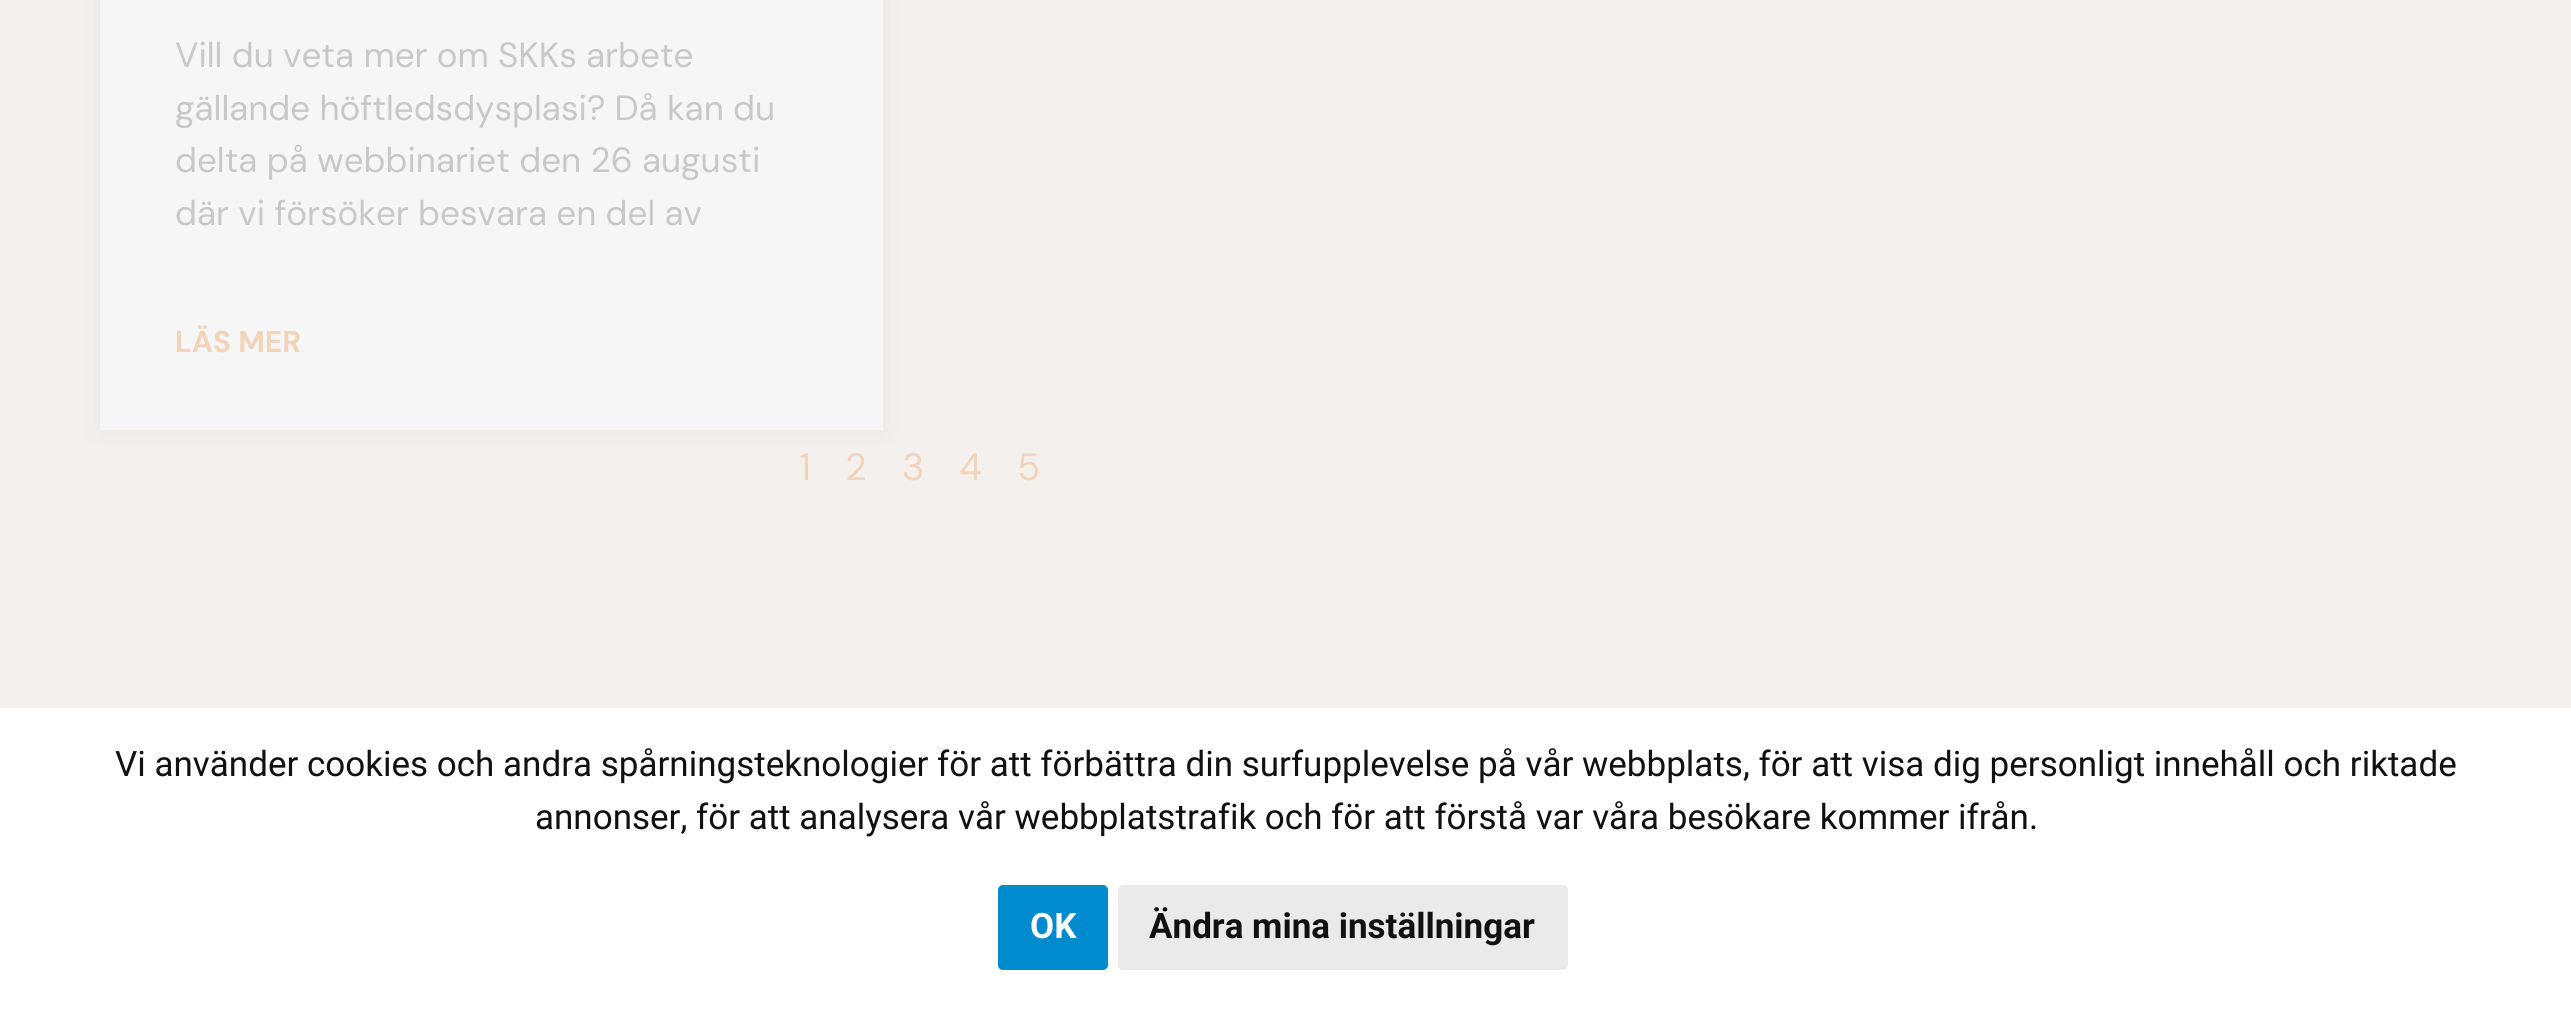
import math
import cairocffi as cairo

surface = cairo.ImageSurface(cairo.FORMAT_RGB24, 2571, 1010)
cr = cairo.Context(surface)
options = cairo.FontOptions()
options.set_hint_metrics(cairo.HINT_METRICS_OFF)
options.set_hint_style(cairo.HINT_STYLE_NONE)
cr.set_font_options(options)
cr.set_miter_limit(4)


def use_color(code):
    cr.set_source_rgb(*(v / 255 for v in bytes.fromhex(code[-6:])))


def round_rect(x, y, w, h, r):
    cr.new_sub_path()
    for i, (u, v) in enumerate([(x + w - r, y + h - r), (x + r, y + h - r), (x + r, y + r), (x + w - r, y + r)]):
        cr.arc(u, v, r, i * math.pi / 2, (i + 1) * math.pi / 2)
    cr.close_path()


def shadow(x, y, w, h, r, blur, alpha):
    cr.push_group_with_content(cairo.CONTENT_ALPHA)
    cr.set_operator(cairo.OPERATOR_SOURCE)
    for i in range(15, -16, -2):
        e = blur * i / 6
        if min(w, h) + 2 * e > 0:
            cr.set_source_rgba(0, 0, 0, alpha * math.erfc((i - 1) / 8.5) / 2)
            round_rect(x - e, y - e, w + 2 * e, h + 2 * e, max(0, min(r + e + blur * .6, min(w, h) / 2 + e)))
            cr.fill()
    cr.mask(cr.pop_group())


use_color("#f4f0ee")
cr.paint()
use_color("#a0a0a0")
shadow(100, -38, 783, 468, 0, 12.5, 0.15)
use_color("#f6f6f6")
cr.rectangle(100, 0, 783, 430)
cr.fill()
cr.select_font_face("DM Sans")
cr.set_font_size(35)
use_color("#c8c8c8")
cr.move_to(175, 67)
cr.show_text("Vill du veta mer om SKKs arbete")
cr.move_to(175, 120)
cr.show_text("gällande höftledsdysplasi? Då kan du")
cr.move_to(175, 172)
cr.show_text("delta på webbinariet den 26 augusti")
cr.move_to(175, 225)
cr.show_text("där vi försöker besvara en del av")
cr.select_font_face("DM Sans", cairo.FONT_SLANT_NORMAL, cairo.FONT_WEIGHT_BOLD)
cr.set_font_size(30)
use_color("#f1d4ba")
cr.move_to(175, 352)
cr.show_text("LÄS MER")
cr.select_font_face("DM Sans")
cr.set_font_size(38)
cr.move_to(799, 480)
cr.show_text("1")
cr.move_to(845, 480)
cr.show_text("2")
cr.move_to(902, 480)
cr.show_text("3")
cr.move_to(959, 480)
cr.show_text("4")
cr.move_to(1017, 480)
cr.show_text("5")
use_color("#ffffff")
cr.rectangle(0, 708, 2571, 302)
cr.fill()
cr.select_font_face("Roboto")
cr.set_font_size(35)
use_color("#111111")
cr.move_to(115, 776)
cr.show_text("Vi använder cookies och andra spårningsteknologier för att förbättra din surfupplevelse på vår webbplats, för att visa dig personligt innehåll och riktade")
cr.move_to(535, 829)
cr.show_text("annonser, för att analysera vår webbplatstrafik och för att förstå var våra besökare kommer ifrån.")
use_color("#008bce")
round_rect(998, 885, 110, 85, 5)
cr.fill()
cr.select_font_face("Roboto", cairo.FONT_SLANT_NORMAL, cairo.FONT_WEIGHT_BOLD)
use_color("#ffffff")
cr.move_to(1030, 938)
cr.show_text("OK")
use_color("#eaeaea")
round_rect(1118, 885, 450, 85, 5)
cr.fill()
use_color("#111111")
cr.move_to(1149, 938)
cr.show_text("Ändra mina inställningar")
surface.write_to_png("result.png")
